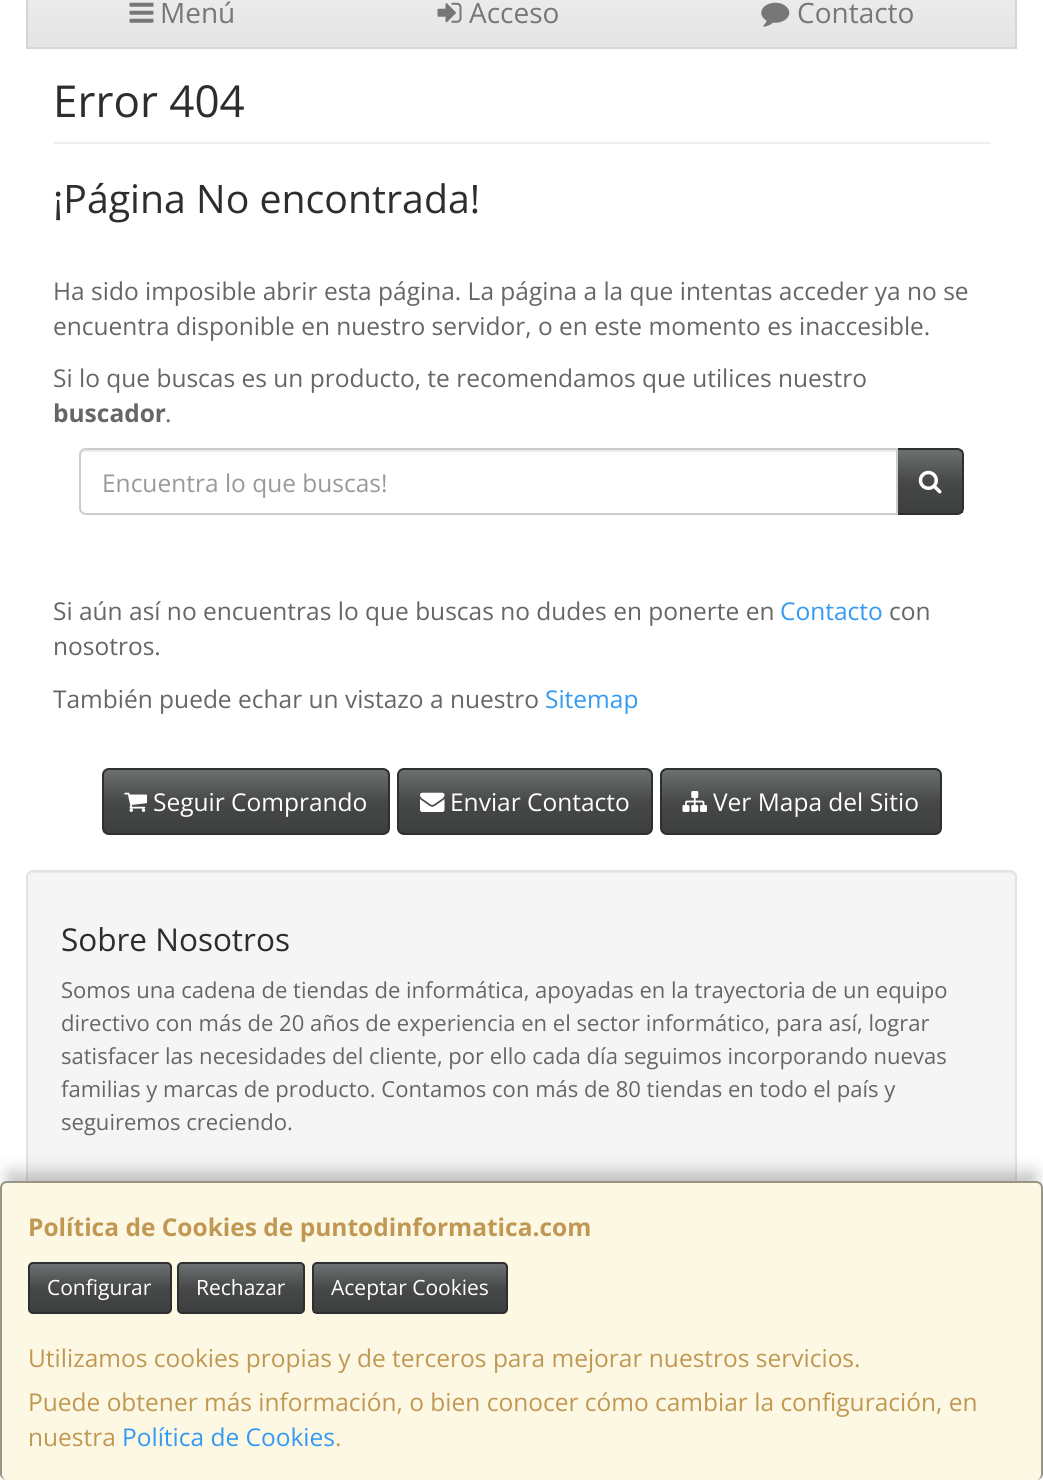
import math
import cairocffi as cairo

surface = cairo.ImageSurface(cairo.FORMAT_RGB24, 1043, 1480)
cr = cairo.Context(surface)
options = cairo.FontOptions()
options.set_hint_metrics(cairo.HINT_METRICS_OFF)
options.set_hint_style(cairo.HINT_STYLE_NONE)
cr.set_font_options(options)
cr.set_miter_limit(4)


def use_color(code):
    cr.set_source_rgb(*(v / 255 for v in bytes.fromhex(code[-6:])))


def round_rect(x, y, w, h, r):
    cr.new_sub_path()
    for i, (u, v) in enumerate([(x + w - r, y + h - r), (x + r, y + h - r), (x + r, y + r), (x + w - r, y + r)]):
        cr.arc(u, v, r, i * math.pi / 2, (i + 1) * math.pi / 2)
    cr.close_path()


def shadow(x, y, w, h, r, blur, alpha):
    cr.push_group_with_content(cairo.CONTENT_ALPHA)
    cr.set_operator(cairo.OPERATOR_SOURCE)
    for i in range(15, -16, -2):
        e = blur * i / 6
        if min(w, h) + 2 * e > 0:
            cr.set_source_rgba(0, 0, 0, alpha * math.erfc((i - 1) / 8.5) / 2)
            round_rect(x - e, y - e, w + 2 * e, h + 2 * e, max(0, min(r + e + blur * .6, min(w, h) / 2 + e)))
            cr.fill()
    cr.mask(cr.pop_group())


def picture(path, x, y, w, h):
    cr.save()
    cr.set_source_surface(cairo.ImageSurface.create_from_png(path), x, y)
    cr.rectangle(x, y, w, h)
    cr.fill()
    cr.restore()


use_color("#ffffff")
cr.paint()
gradient = cairo.LinearGradient(522, -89, 522, 47)
gradient.add_color_stop_rgba(0, 1, 1, 1, 1)
gradient.add_color_stop_rgba(0.5, 0.933, 0.933, 0.933, 1)
gradient.add_color_stop_rgba(1, 0.894, 0.894, 0.894, 1)
cr.set_source(gradient)
cr.rectangle(28, 0, 987, 47)
cr.fill()
cr.rectangle(27, -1, 989, 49)
use_color("#d5d5d5")
cr.stroke()
picture("img1.png", 129, 2, 25, 21)
cr.select_font_face("Open Sans")
cr.set_font_size(28)
use_color("#777777")
cr.move_to(160, 23)
cr.show_text("Menú")
picture("img2.png", 437, 2, 25, 21)
cr.move_to(469, 23)
cr.show_text("Acceso")
picture("img3.png", 761, 2, 29, 25)
cr.move_to(797, 23)
cr.show_text("Contacto")
use_color("#eeeeee")
cr.rectangle(53, 142, 938, 2)
cr.fill()
cr.set_font_size(44)
use_color("#2d2d2d")
cr.move_to(53, 117)
cr.show_text("Error 404")
cr.set_font_size(39.25)
cr.move_to(53, 213)
cr.show_text("¡Página No encontrada!")
cr.set_font_size(24.5)
use_color("#666666")
cr.move_to(53, 300)
cr.show_text("Ha sido imposible abrir esta página. La página a la que intentas acceder ya no se")
cr.move_to(53, 335)
cr.show_text("encuentra disponible en nuestro servidor, o en este momento es inaccesible.")
cr.move_to(53, 387)
cr.show_text("Si lo que buscas es un producto, te recomendamos que utilices nuestro")
cr.select_font_face("Open Sans", cairo.FONT_SLANT_NORMAL, cairo.FONT_WEIGHT_BOLD)
cr.move_to(53, 422)
cr.show_text("buscador")
cr.select_font_face("Open Sans")
cr.move_to(165, 422)
cr.show_text(".")
gradient = cairo.LinearGradient(930, 450, 930, 513)
gradient.add_color_stop_rgba(0, 0.427, 0.439, 0.439, 1)
gradient.add_color_stop_rgba(0.5, 0.278, 0.286, 0.286, 1)
gradient.add_color_stop_rgba(1, 0.239, 0.247, 0.247, 1)
cr.set_source(gradient)
cr.rectangle(898, 450, 65, 63)
cr.fill()
cr.new_path()
cr.move_to(897, 449)
cr.line_to(957, 449)
cr.curve_to(960.5, 449, 963, 451.5, 963, 455)
cr.line_to(963, 508)
cr.curve_to(963, 511.5, 960.5, 514, 957, 514)
cr.line_to(897, 514)
cr.close_path()
use_color("#2e2f2f")
cr.stroke()
use_color("#ffffff")
cr.new_path()
cr.move_to(86, 448)
cr.line_to(898, 448)
cr.line_to(898, 515)
cr.line_to(86, 515)
cr.curve_to(82, 515, 79, 512, 79, 508)
cr.line_to(79, 455)
cr.curve_to(79, 451, 82, 448, 86, 448)
cr.close_path()
cr.fill()
use_color("#ececec")
cr.new_path()
cr.move_to(86, 452)
cr.line_to(896, 452)
cr.line_to(896, 450)
cr.line_to(86, 450)
cr.curve_to(84, 450, 81, 452, 81, 454)
cr.curve_to(82, 453, 84, 452, 86, 452)
cr.close_path()
cr.fill()
cr.new_path()
cr.move_to(86, 449)
cr.line_to(897, 449)
cr.line_to(897, 514)
cr.line_to(86, 514)
cr.curve_to(82.5, 514, 80, 511.5, 80, 508)
cr.line_to(80, 455)
cr.curve_to(80, 451.5, 82.5, 449, 86, 449)
cr.close_path()
use_color("#cccccc")
cr.stroke()
use_color("#999999")
cr.move_to(102, 492)
cr.show_text("Encuentra lo que buscas!")
picture("img4.png", 918, 470, 24, 24)
use_color("#666666")
cr.move_to(53, 620)
cr.show_text("Si aún así no encuentras lo que buscas no dudes en ponerte en")
use_color("#3399f3")
cr.move_to(780, 620)
cr.show_text("Contacto")
use_color("#666666")
cr.move_to(889, 620)
cr.show_text("con")
cr.move_to(53, 655)
cr.show_text("nosotros.")
cr.move_to(53, 708)
cr.show_text("También puede echar un vistazo a nuestro")
use_color("#3399f3")
cr.move_to(545, 708)
cr.show_text("Sitemap")
cr.save()
round_rect(102, 768, 288, 67, 7)
cr.clip()
gradient = cairo.LinearGradient(246, 770, 246, 833)
gradient.add_color_stop_rgba(0, 0.427, 0.439, 0.439, 1)
gradient.add_color_stop_rgba(0.5, 0.278, 0.286, 0.286, 1)
gradient.add_color_stop_rgba(1, 0.239, 0.247, 0.247, 1)
cr.set_source(gradient)
cr.rectangle(103, 770, 286, 63)
cr.fill()
cr.restore()
round_rect(103, 769, 286, 65, 6)
use_color("#2e2f2f")
cr.stroke()
picture("img5.png", 124, 792, 23, 20)
use_color("#ffffff")
cr.move_to(153, 811)
cr.show_text("Seguir Comprando")
gradient = cairo.LinearGradient(525, 770, 525, 833)
gradient.add_color_stop_rgba(0, 0.427, 0.439, 0.439, 1)
gradient.add_color_stop_rgba(0.5, 0.278, 0.286, 0.286, 1)
gradient.add_color_stop_rgba(1, 0.239, 0.247, 0.247, 1)
cr.set_source(gradient)
cr.rectangle(399, 770, 252, 63)
cr.fill()
round_rect(398, 769, 254, 65, 6)
use_color("#2e2f2f")
cr.stroke()
picture("img6.png", 420, 792, 25, 20)
use_color("#ffffff")
cr.move_to(450, 811)
cr.show_text("Enviar Contacto")
gradient = cairo.LinearGradient(801, 770, 801, 833)
gradient.add_color_stop_rgba(0, 0.427, 0.439, 0.439, 1)
gradient.add_color_stop_rgba(0.5, 0.278, 0.286, 0.286, 1)
gradient.add_color_stop_rgba(1, 0.239, 0.247, 0.247, 1)
cr.set_source(gradient)
cr.rectangle(662, 770, 278, 63)
cr.fill()
round_rect(661, 769, 280, 65, 6)
use_color("#2e2f2f")
cr.stroke()
picture("img7.png", 682, 791, 25, 21)
use_color("#ffffff")
cr.move_to(713, 811)
cr.show_text("Ver Mapa del Sitio")
use_color("#f5f5f5")
round_rect(26, 870, 991, 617, 7)
cr.fill()
use_color("#e9e9e9")
cr.new_path()
cr.move_to(33, 873)
cr.line_to(1010, 873)
cr.curve_to(1013, 873, 1015, 876, 1015, 878)
cr.curve_to(1015, 875, 1013, 872, 1010, 872)
cr.line_to(33, 872)
cr.curve_to(30, 872, 28, 875, 28, 878)
cr.curve_to(28, 876, 30, 873, 33, 873)
cr.close_path()
cr.fill()
round_rect(27, 871, 989, 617, 6)
use_color("#e3e3e3")
cr.stroke()
cr.set_font_size(31.5)
use_color("#2d2d2d")
cr.move_to(61, 951)
cr.show_text("Sobre Nosotros")
cr.set_font_size(22.05)
use_color("#666666")
cr.move_to(61, 998)
cr.show_text("Somos una cadena de tiendas de informática, apoyadas en la trayectoria de un equipo")
cr.move_to(61, 1031)
cr.show_text("directivo con más de 20 años de experiencia en el sector informático, para así, lograr")
cr.move_to(61, 1064)
cr.show_text("satisfacer las necesidades del cliente, por ello cada día seguimos incorporando nuevas")
cr.move_to(61, 1097)
cr.show_text("familias y marcas de producto. Contamos con más de 80 tiendas en todo el país y")
cr.move_to(61, 1130)
cr.show_text("seguiremos creciendo.")
use_color("#000000")
shadow(9, 1173, 1025, 281, 0, 9, 0.25)
use_color("#fcf8e3")
round_rect(0, 1181, 1043, 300, 7)
cr.fill()
cr.set_source_rgba(0, 0, 0, 0.4)
cr.set_fill_rule(cairo.FILL_RULE_EVEN_ODD)
cr.new_path()
cr.move_to(7, 1181)
cr.line_to(1036, 1181)
cr.curve_to(1040, 1181, 1043, 1184, 1043, 1188)
cr.line_to(1043, 1474)
cr.curve_to(1043, 1477, 1040, 1480, 1036, 1480)
cr.line_to(7, 1480)
cr.curve_to(3, 1480, 0, 1477, 0, 1474)
cr.line_to(0, 1188)
cr.curve_to(0, 1184, 3, 1181, 7, 1181)
cr.close_path()
cr.move_to(7, 1183)
cr.line_to(1036, 1183)
cr.curve_to(1039, 1183, 1041, 1185, 1041, 1188)
cr.line_to(1041, 1474)
cr.curve_to(1041, 1477, 1039, 1480, 1036, 1480)
cr.line_to(7, 1480)
cr.curve_to(4, 1480, 2, 1477, 2, 1474)
cr.line_to(2, 1188)
cr.curve_to(2, 1185, 4, 1183, 7, 1183)
cr.close_path()
cr.fill()
cr.select_font_face("Open Sans", cairo.FONT_SLANT_NORMAL, cairo.FONT_WEIGHT_BOLD)
cr.set_font_size(24.5)
use_color("#c09853")
cr.move_to(28, 1236)
cr.show_text("Política de Cookies de puntodinformatica.com")
gradient = cairo.LinearGradient(100, 1264, 100, 1313)
gradient.add_color_stop_rgba(0, 0.427, 0.439, 0.439, 1)
gradient.add_color_stop_rgba(0.5, 0.278, 0.286, 0.286, 1)
gradient.add_color_stop_rgba(1, 0.239, 0.247, 0.247, 1)
cr.set_source(gradient)
cr.rectangle(30, 1264, 140, 48)
cr.fill()
round_rect(29, 1263, 142, 50, 4)
use_color("#2e2f2f")
cr.stroke()
cr.select_font_face("Open Sans")
cr.set_font_size(21)
use_color("#ffffff")
cr.move_to(47, 1295)
cr.show_text("Configurar")
gradient = cairo.LinearGradient(241, 1264, 241, 1313)
gradient.add_color_stop_rgba(0, 0.427, 0.439, 0.439, 1)
gradient.add_color_stop_rgba(0.5, 0.278, 0.286, 0.286, 1)
gradient.add_color_stop_rgba(1, 0.239, 0.247, 0.247, 1)
cr.set_source(gradient)
cr.rectangle(179, 1264, 124, 48)
cr.fill()
round_rect(178, 1263, 126, 50, 4)
use_color("#2e2f2f")
cr.stroke()
use_color("#ffffff")
cr.move_to(196, 1295)
cr.show_text("Rechazar")
gradient = cairo.LinearGradient(410, 1264, 410, 1313)
gradient.add_color_stop_rgba(0, 0.427, 0.439, 0.439, 1)
gradient.add_color_stop_rgba(0.5, 0.278, 0.286, 0.286, 1)
gradient.add_color_stop_rgba(1, 0.239, 0.247, 0.247, 1)
cr.set_source(gradient)
cr.rectangle(313, 1264, 193, 49)
cr.fill()
round_rect(313, 1263, 194, 50, 4)
use_color("#2e2f2f")
cr.stroke()
use_color("#ffffff")
cr.move_to(331, 1295)
cr.show_text("Aceptar Cookies")
cr.set_font_size(24.5)
use_color("#c09853")
cr.move_to(28, 1367)
cr.show_text("Utilizamos cookies propias y de terceros para mejorar nuestros servicios.")
cr.move_to(28, 1411)
cr.show_text("Puede obtener más información, o bien conocer cómo cambiar la configuración, en")
cr.move_to(28, 1446)
cr.show_text("nuestra")
use_color("#3399f3")
cr.move_to(122, 1446)
cr.show_text("Política de Cookies")
use_color("#c09853")
cr.move_to(335, 1446)
cr.show_text(".")
surface.write_to_png("result.png")
